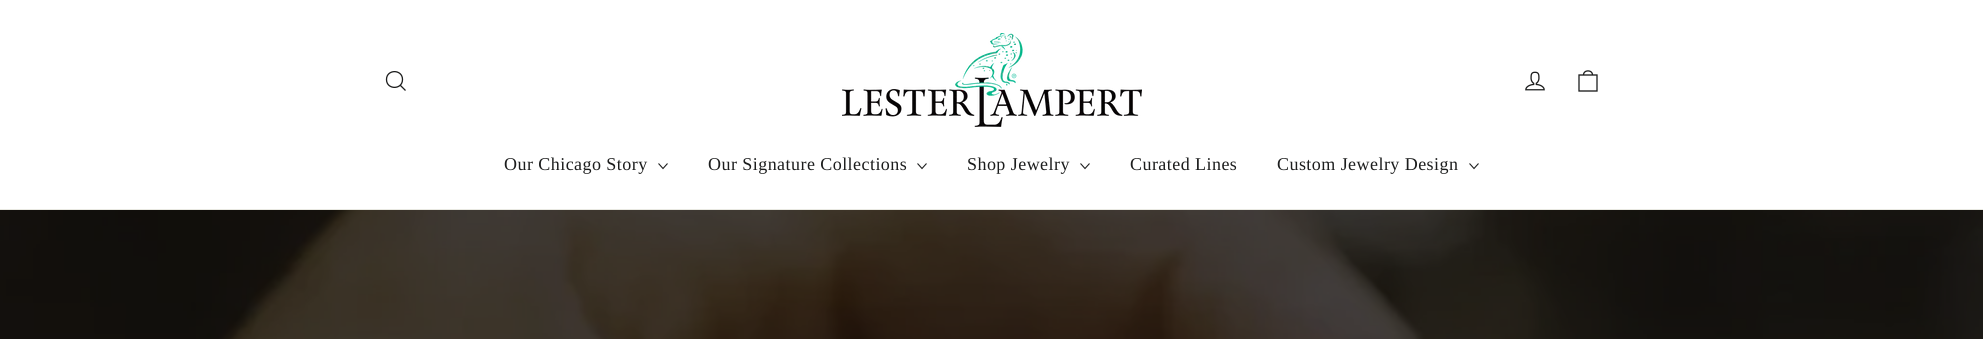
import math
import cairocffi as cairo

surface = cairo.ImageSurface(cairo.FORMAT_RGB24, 1983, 339)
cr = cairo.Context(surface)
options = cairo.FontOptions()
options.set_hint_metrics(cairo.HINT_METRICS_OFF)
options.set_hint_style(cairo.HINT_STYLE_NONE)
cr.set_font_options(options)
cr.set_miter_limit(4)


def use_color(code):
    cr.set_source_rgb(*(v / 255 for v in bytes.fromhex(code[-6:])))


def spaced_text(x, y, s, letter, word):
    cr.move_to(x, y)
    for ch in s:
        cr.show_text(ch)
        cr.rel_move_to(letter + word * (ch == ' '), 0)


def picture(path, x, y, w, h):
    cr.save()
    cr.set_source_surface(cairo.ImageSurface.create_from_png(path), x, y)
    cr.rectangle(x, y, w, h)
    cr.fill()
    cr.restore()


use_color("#ffffff")
cr.paint()
use_color("#e8e8e1")
cr.rectangle(0, 209, 1983, 1)
cr.fill()
cr.new_path()
cr.move_to(402.5, 79.5)
cr.curve_to(402.5, 90, 386.5, 90, 386.5, 79.5)
cr.curve_to(386.5, 69, 402.5, 69, 402.5, 79.5)
cr.close_path()
cr.move_to(405.5, 90.5)
cr.line_to(400.5, 85.5)
use_color("#1c1d1d")
cr.set_line_width(1.3)
cr.stroke()
picture("img1.png", 842, 33, 300, 94)
picture("img2.png", 1525, 71, 20, 20)
cr.new_path()
cr.move_to(1579, 75)
cr.line_to(1597, 75)
cr.line_to(1597, 91)
cr.line_to(1579, 91)
cr.close_path()
cr.move_to(1583.5, 75)
cr.curve_to(1583.5, 69.5, 1592.5, 69.5, 1592.5, 75)
cr.stroke()
cr.select_font_face("Liberation Serif")
cr.set_font_size(18)
spaced_text(504, 170, "Our Chicago Story", 0.45, 0)
cr.new_path()
cr.move_to(658.5, 163.5)
cr.line_to(663, 168.5)
cr.line_to(667.5, 163.5)
cr.set_line_width(1.1)
cr.stroke()
spaced_text(708, 170, "Our Signature Collections", 0.45, 0)
cr.new_path()
cr.move_to(917.5, 163.5)
cr.line_to(922, 168.5)
cr.line_to(926.5, 163.5)
cr.stroke()
spaced_text(967, 170, "Shop Jewelry", 0.45, 0)
cr.new_path()
cr.move_to(1080.5, 163.5)
cr.line_to(1085, 168.5)
cr.line_to(1089.5, 163.5)
cr.stroke()
spaced_text(1130, 170, "Curated Lines", 0.45, 0)
spaced_text(1277, 170, "Custom Jewelry Design", 0.45, 0)
cr.new_path()
cr.move_to(1469.5, 163.5)
cr.line_to(1474, 168.5)
cr.line_to(1478.5, 163.5)
cr.stroke()
picture("img3.png", 0, 210, 1983, 129)
surface.write_to_png("result.png")
